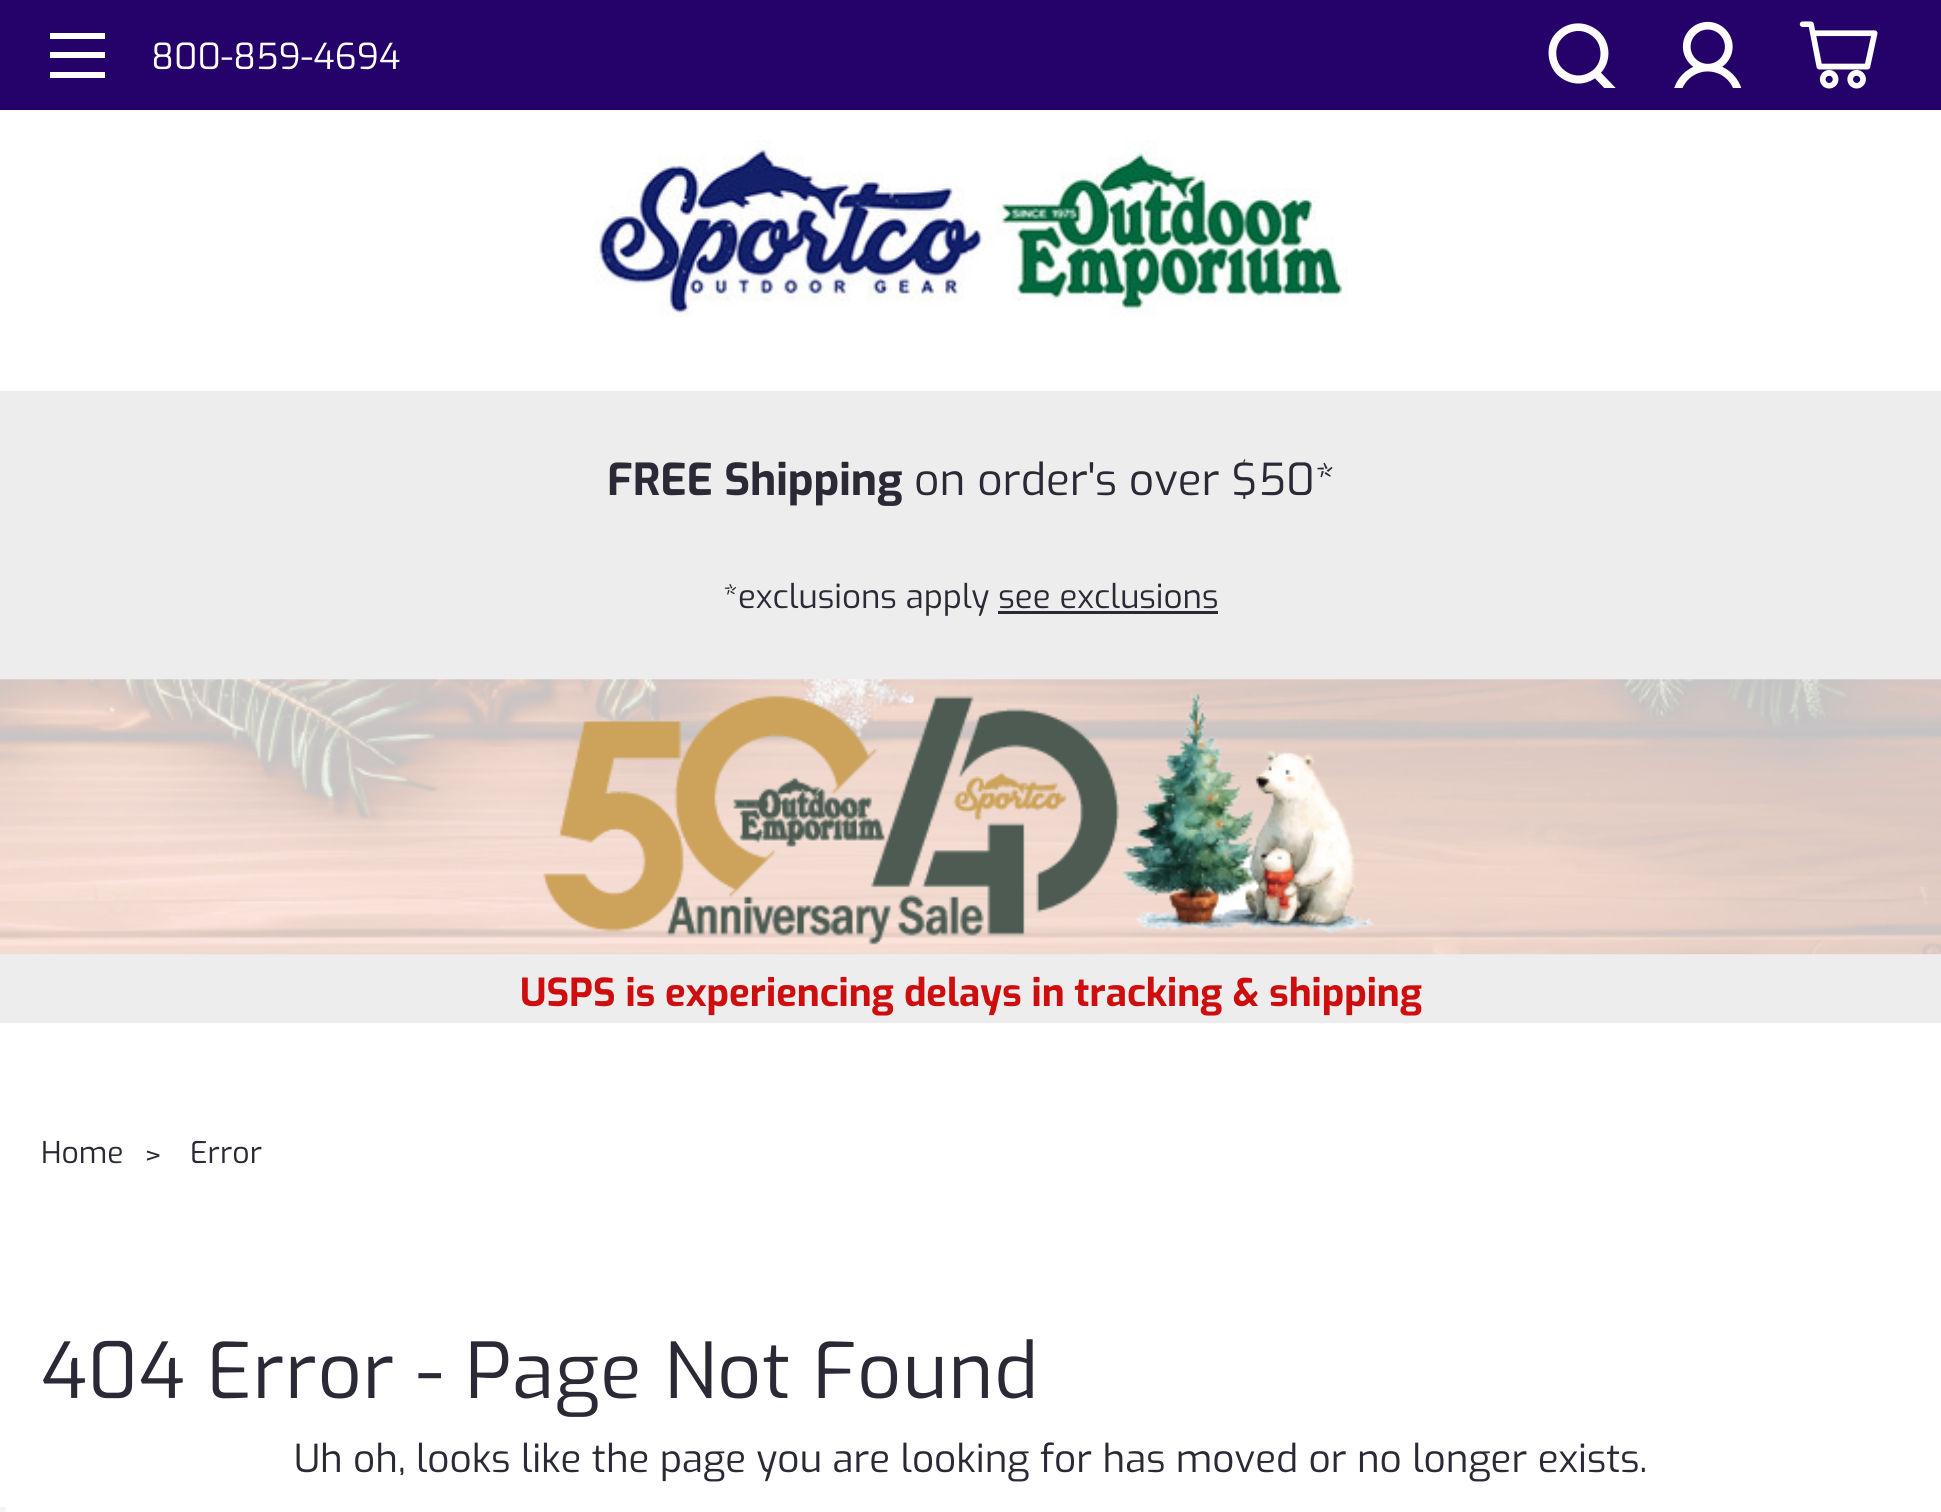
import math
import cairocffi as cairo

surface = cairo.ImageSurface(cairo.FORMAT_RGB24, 1941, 1512)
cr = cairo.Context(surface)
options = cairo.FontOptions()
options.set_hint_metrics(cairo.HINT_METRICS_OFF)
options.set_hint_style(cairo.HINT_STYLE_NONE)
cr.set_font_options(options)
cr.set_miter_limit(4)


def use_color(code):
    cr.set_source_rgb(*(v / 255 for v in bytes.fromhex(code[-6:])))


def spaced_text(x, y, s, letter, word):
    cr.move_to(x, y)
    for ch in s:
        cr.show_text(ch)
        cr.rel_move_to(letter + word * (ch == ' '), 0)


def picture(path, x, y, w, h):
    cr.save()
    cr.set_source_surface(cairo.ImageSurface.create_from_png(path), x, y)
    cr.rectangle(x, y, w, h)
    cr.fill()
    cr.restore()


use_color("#ffffff")
cr.paint()
use_color("#240269")
cr.rectangle(0, 0, 1941, 110)
cr.fill()
use_color("#ffffff")
cr.rectangle(50, 52, 55, 6)
cr.fill()
cr.rectangle(50, 33, 55, 6)
cr.fill()
cr.rectangle(50, 72, 55, 6)
cr.fill()
cr.select_font_face("Exo")
cr.set_font_size(35.75)
cr.move_to(151, 69)
cr.show_text("800-859-4694")
picture("img1.png", 1548, 23, 68, 65)
picture("img2.png", 1674, 21, 68, 67)
picture("img3.png", 1799, 21, 79, 68)
picture("img4.png", 594, 140, 754, 177)
use_color("#ededed")
cr.rectangle(0, 391, 1941, 632)
cr.fill()
cr.select_font_face("Exo", cairo.FONT_SLANT_NORMAL, cairo.FONT_WEIGHT_BOLD)
cr.set_font_size(44)
use_color("#2b2935")
cr.move_to(607, 495)
cr.show_text("FREE Shipping")
cr.select_font_face("Exo")
cr.move_to(914, 495)
cr.show_text("on order's over $50*")
cr.set_font_size(33)
cr.move_to(723, 608)
cr.show_text("*exclusions apply see exclusions")
cr.rectangle(998, 611, 220, 3)
cr.fill()
picture("img5.png", 0, 679, 1941, 276)
cr.select_font_face("Exo", cairo.FONT_SLANT_NORMAL, cairo.FONT_WEIGHT_BOLD)
cr.set_font_size(38.5)
use_color("#ce0e0e")
cr.move_to(520, 1006)
cr.show_text("USPS is experiencing delays in tracking & shipping")
cr.select_font_face("Exo")
cr.set_font_size(30)
use_color("#2b2935")
cr.move_to(41, 1163)
cr.show_text("Home")
cr.move_to(144, 1166)
cr.show_text(">")
cr.move_to(190, 1163)
cr.show_text("Error")
cr.set_font_size(77)
spaced_text(41, 1398, "404 Error - Page Not Found", 0.7, 0)
cr.set_font_size(38.5)
cr.move_to(294, 1472)
cr.show_text("Uh oh, looks like the page you are looking for has moved or no longer exists.")
use_color("#f5f5f5")
cr.rectangle(0, 1507, 6, 5)
cr.fill()
surface.write_to_png("result.png")
